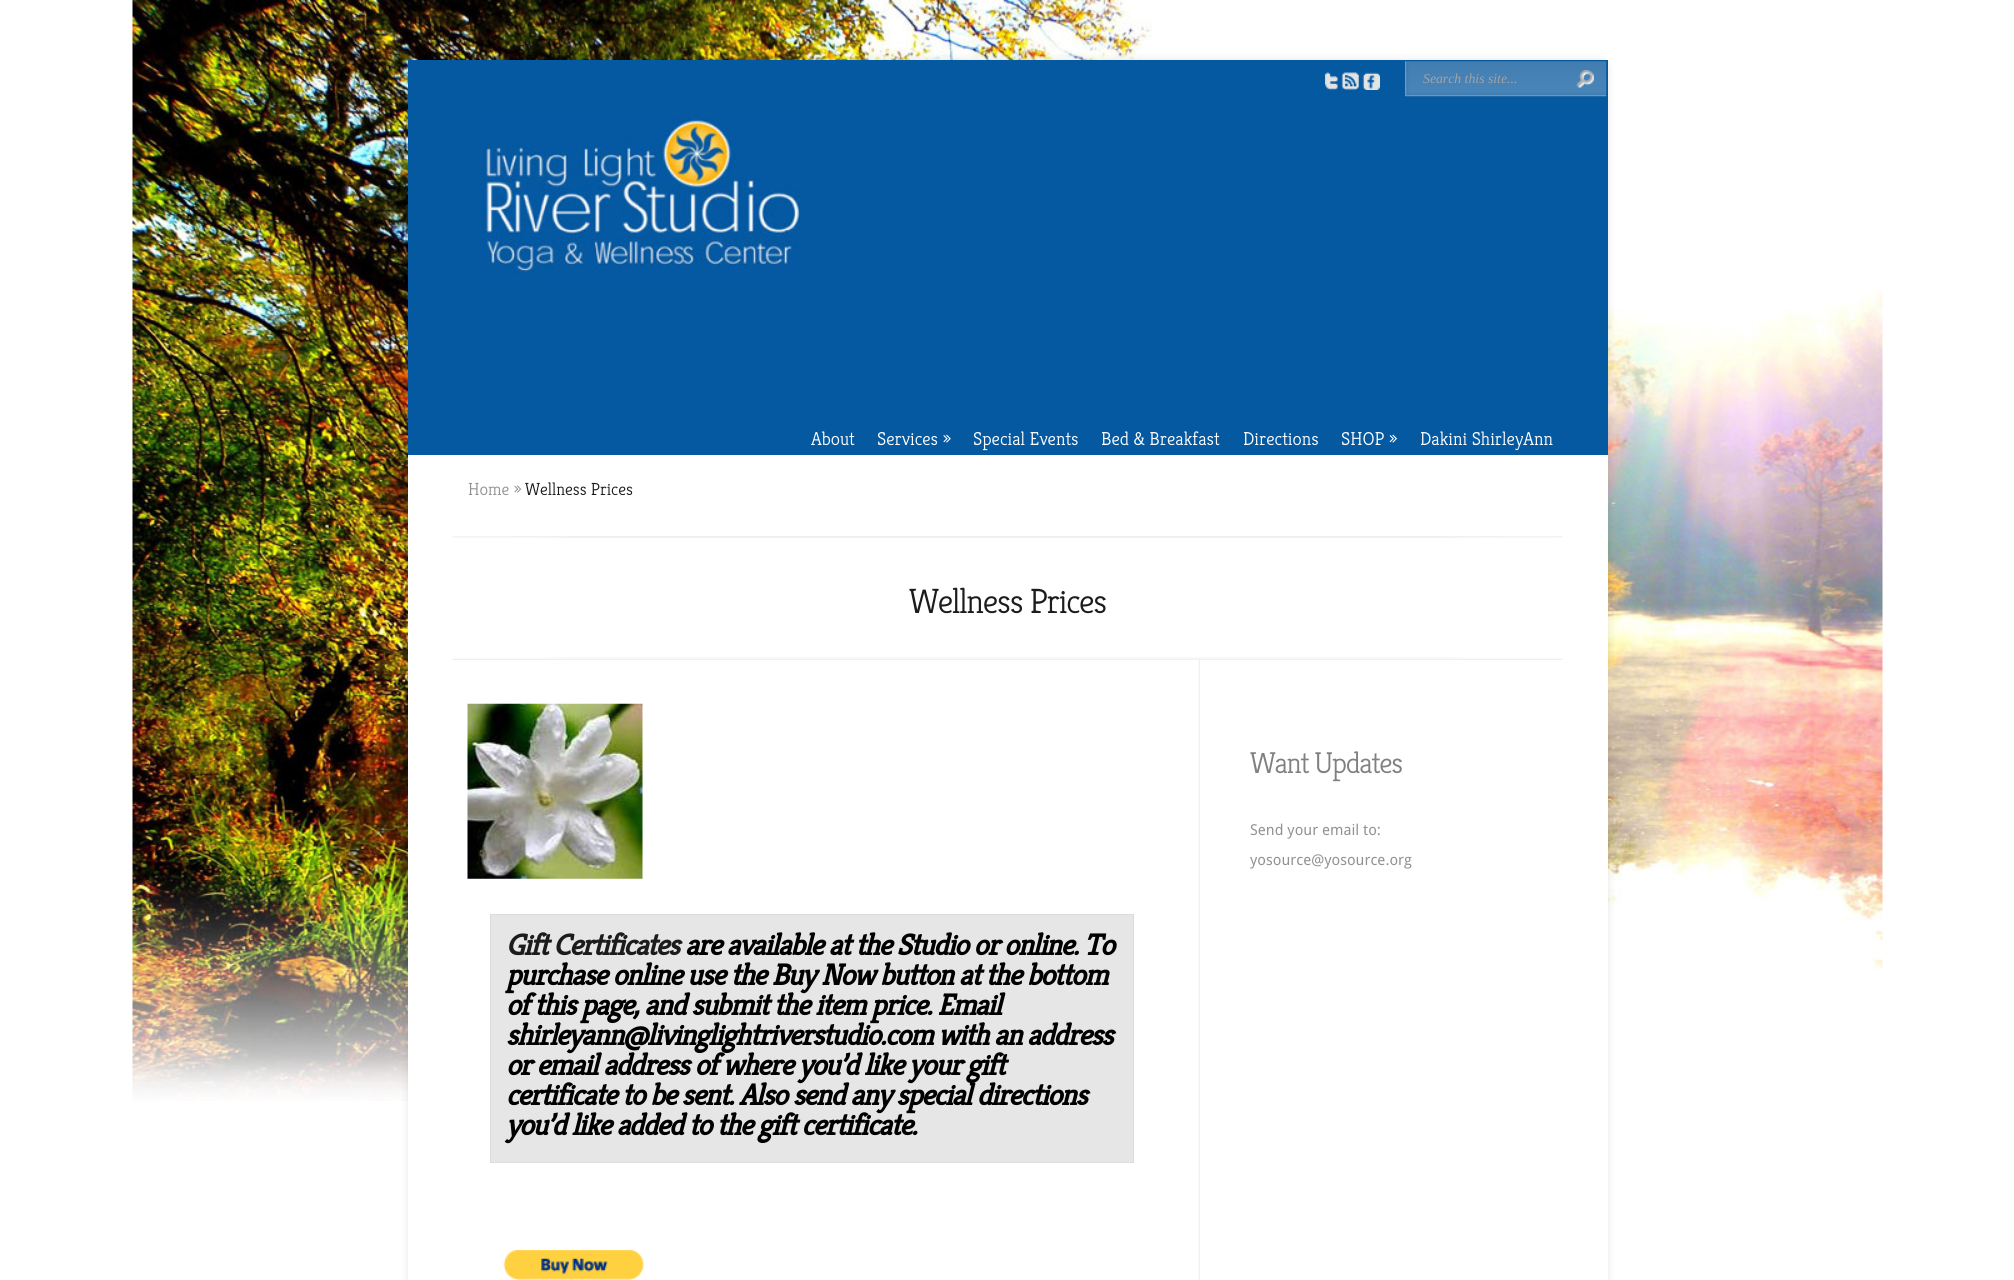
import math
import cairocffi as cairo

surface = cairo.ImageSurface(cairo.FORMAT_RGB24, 2014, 1280)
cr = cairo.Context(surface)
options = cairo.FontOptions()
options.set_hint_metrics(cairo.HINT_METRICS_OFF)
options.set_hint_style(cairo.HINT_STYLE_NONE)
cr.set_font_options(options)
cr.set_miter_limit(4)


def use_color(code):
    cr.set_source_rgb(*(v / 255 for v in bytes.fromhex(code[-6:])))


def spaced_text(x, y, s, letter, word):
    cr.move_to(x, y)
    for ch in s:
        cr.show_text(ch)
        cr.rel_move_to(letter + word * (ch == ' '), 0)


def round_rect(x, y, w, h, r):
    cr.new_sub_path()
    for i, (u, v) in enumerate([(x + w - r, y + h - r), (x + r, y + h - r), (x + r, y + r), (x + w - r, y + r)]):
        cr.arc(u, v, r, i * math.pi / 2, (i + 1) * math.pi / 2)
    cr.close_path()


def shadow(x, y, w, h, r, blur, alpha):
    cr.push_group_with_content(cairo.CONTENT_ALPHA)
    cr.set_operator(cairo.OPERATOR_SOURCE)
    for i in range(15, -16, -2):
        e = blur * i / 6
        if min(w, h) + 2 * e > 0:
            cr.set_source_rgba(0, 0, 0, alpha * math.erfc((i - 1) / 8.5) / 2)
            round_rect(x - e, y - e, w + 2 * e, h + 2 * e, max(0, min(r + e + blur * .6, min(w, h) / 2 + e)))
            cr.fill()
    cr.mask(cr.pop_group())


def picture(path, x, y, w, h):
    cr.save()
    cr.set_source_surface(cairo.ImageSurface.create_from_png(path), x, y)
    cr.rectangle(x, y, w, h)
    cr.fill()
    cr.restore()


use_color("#ffffff")
cr.paint()
picture("img1.png", 132, 0, 1751, 1101)
use_color("#000000")
shadow(408, 60, 1200, 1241, 9, 4, 0.1)
use_color("#ffffff")
cr.rectangle(408, 455, 1200, 825)
cr.fill()
use_color("#0459a1")
cr.rectangle(408, 60, 1200, 395)
cr.fill()
picture("img2.png", 1325, 72, 13, 18)
picture("img3.png", 1341, 72, 18, 18)
picture("img4.png", 1362, 72, 18, 18)
picture("img5.png", 1405, 61, 202, 36)
cr.select_font_face("Liberation Serif", cairo.FONT_SLANT_ITALIC)
cr.set_font_size(13.75)
use_color("#a3a3a3")
cr.move_to(1423, 83)
cr.show_text("Search this site...")
picture("img6.png", 1576, 70, 18, 18)
picture("img7.png", 481, 117, 320, 160)
cr.select_font_face("Kreon Light")
cr.set_font_size(18.75)
use_color("#ffffff")
cr.move_to(811, 445)
cr.show_text("About")
cr.move_to(877, 445)
cr.show_text("Services »")
cr.move_to(973, 445)
cr.show_text("Special Events")
cr.move_to(1101, 445)
cr.show_text("Bed & Breakfast")
cr.move_to(1243, 445)
cr.show_text("Directions")
cr.move_to(1341, 445)
cr.show_text("SHOP »")
cr.move_to(1420, 445)
cr.show_text("Dakini ShirleyAnn")
cr.set_font_size(17.5)
use_color("#929292")
cr.move_to(468, 495)
cr.show_text("Home »")
use_color("#1c1c1c")
cr.move_to(525, 495)
cr.show_text("Wellness Prices")
picture("img8.png", 452, 536, 1111, 2)
picture("img9.png", 452, 657, 1111, 3)
cr.set_font_size(35)
spaced_text(909, 613, "Wellness Prices", -1.25, 0)
picture("img10.png", 1198, 660, 2, 620)
cr.set_font_size(30)
use_color("#808080")
spaced_text(1250, 773, "Want Updates", -1.25, 0)
cr.select_font_face("Droid Sans")
cr.set_font_size(15)
use_color("#929292")
cr.move_to(1250, 835)
cr.show_text("Send your email to:")
cr.move_to(1250, 865)
cr.show_text("yosource@yosource.org")
picture("img11.png", 467, 703, 176, 176)
use_color("#e6e6e6")
cr.rectangle(490.5, 914.5, 643, 248)
cr.fill_preserve()
use_color("#dcdcdc")
cr.set_line_width(1)
cr.stroke()
cr.select_font_face("Kreon", cairo.FONT_SLANT_ITALIC, cairo.FONT_WEIGHT_BOLD)
cr.set_font_size(30)
use_color("#1c1c1c")
spaced_text(506, 955, "Gift Certificates", -1.25, 0)
use_color("#000000")
spaced_text(685, 955, "are available at the Studio or online. To", -1.25, 0)
spaced_text(506, 985, "purchase online use the Buy Now button at the bottom", -1.25, 0)
spaced_text(506, 1015, "of this page, and submit the item price. Email", -1.25, 0)
spaced_text(506, 1045, "shirleyann@livinglightriverstudio.com with an address", -1.25, 0)
spaced_text(506, 1075, "or email address of where you’d like your gift", -1.25, 0)
spaced_text(506, 1105, "certificate to be sent. Also send any special directions", -1.25, 0)
spaced_text(506, 1135, "you’d like added to the gift certificate.", -1.25, 0)
picture("img12.png", 503, 1249, 141, 31)
surface.write_to_png("result.png")
